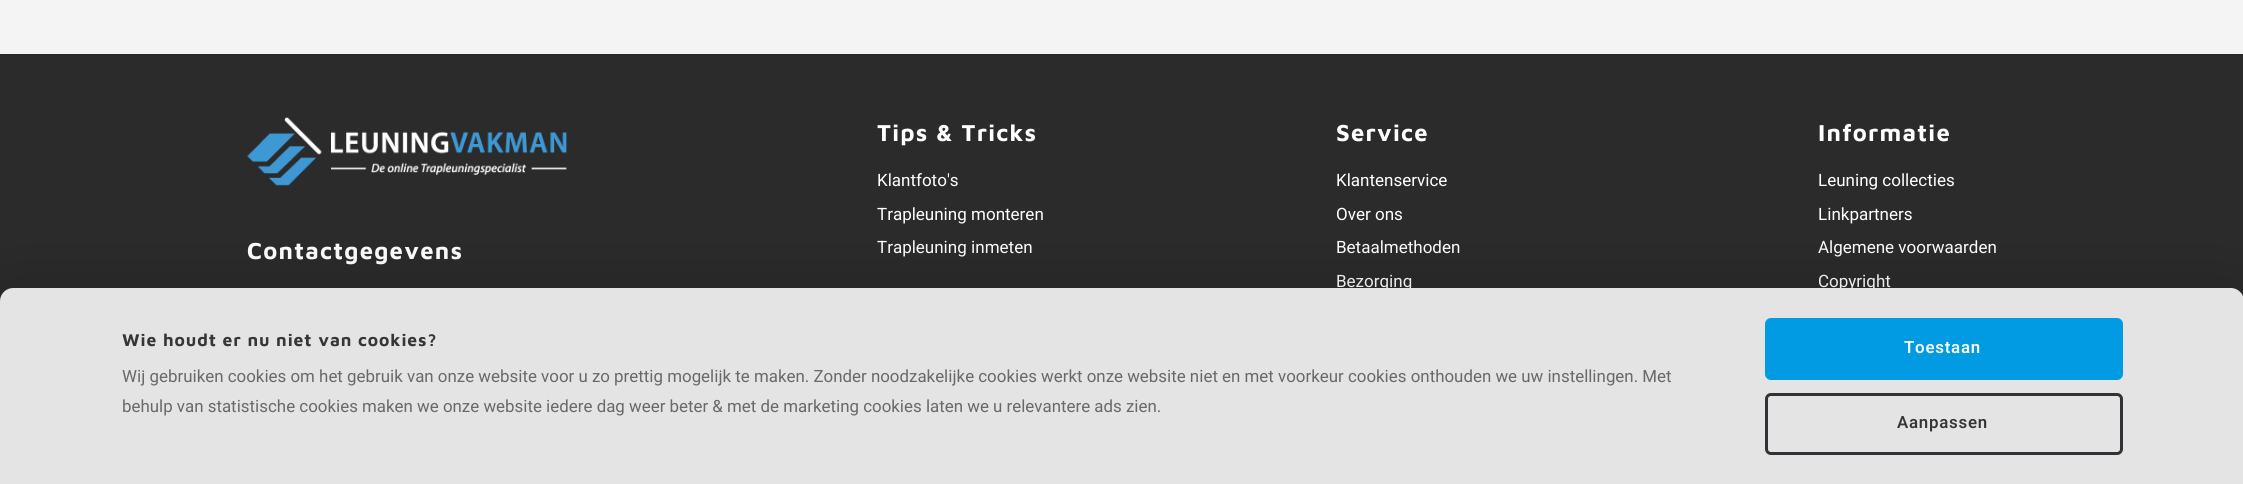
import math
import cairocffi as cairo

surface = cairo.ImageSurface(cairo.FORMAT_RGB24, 2243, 484)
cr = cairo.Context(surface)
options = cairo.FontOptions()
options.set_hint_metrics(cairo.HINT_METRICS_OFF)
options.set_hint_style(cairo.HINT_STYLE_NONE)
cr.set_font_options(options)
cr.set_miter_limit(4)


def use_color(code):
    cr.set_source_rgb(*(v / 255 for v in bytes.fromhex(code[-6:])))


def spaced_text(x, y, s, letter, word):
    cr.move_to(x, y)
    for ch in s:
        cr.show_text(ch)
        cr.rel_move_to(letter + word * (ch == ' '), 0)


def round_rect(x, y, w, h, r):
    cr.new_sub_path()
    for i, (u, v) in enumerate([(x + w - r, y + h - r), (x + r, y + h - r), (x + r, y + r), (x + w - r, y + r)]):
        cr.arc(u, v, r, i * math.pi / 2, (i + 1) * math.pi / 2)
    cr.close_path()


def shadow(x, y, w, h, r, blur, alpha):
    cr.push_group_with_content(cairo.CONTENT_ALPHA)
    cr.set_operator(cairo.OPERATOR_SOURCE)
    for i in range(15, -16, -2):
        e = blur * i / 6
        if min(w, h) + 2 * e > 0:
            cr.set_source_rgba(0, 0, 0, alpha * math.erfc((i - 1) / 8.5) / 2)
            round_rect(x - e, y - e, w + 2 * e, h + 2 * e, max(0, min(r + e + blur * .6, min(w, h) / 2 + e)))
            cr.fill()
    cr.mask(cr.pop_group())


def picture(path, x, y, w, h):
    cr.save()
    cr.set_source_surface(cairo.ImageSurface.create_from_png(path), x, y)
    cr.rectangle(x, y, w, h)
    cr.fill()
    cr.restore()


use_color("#f4f4f4")
cr.paint()
use_color("#2b2b2b")
cr.rectangle(0, 55, 2243, 246)
cr.fill()
use_color("#282828")
cr.rectangle(0, 54, 2243, 1)
cr.fill()
picture("img1.png", 247, 117, 321, 69)
cr.select_font_face("Maven Pro", cairo.FONT_SLANT_NORMAL, cairo.FONT_WEIGHT_BOLD)
cr.set_font_size(23.75)
use_color("#ffffff")
spaced_text(247, 259, "Contactgegevens", 1.25, 0)
spaced_text(877, 141, "Tips & Tricks", 1.25, 0)
cr.select_font_face("Heebo")
cr.set_font_size(17)
cr.move_to(877, 186)
cr.show_text("Klantfoto's")
cr.move_to(877, 220)
cr.show_text("Trapleuning monteren")
cr.move_to(877, 253)
cr.show_text("Trapleuning inmeten")
cr.select_font_face("Maven Pro", cairo.FONT_SLANT_NORMAL, cairo.FONT_WEIGHT_BOLD)
cr.set_font_size(23.75)
spaced_text(1336, 141, "Service", 1.25, 0)
cr.select_font_face("Heebo")
cr.set_font_size(17)
cr.move_to(1336, 186)
cr.show_text("Klantenservice")
cr.move_to(1336, 220)
cr.show_text("Over ons")
cr.move_to(1336, 253)
cr.show_text("Betaalmethoden")
cr.move_to(1336, 287)
cr.show_text("Bezorging")
cr.select_font_face("Maven Pro", cairo.FONT_SLANT_NORMAL, cairo.FONT_WEIGHT_BOLD)
cr.set_font_size(23.75)
spaced_text(1818, 141, "Informatie", 1.25, 0)
cr.select_font_face("Heebo")
cr.set_font_size(17)
cr.move_to(1818, 186)
cr.show_text("Leuning collecties")
cr.move_to(1818, 220)
cr.show_text("Linkpartners")
cr.move_to(1818, 253)
cr.show_text("Algemene voorwaarden")
cr.move_to(1818, 287)
cr.show_text("Copyright")
use_color("#000000")
shadow(0, 325, 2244, 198, 13, 44, 0.5)
use_color("#e4e4e4")
cr.new_path()
cr.move_to(13, 288)
cr.line_to(2231, 288)
cr.curve_to(2238, 288, 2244, 294, 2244, 301)
cr.line_to(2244, 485)
cr.line_to(0, 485)
cr.line_to(0, 301)
cr.curve_to(0, 294, 6, 288, 13, 288)
cr.close_path()
cr.fill()
cr.select_font_face("Maven Pro", cairo.FONT_SLANT_NORMAL, cairo.FONT_WEIGHT_BOLD)
cr.set_font_size(17.5)
use_color("#363636")
spaced_text(122, 346, "Wie houdt er nu niet van cookies?", 0.9, 0)
cr.select_font_face("Heebo")
cr.set_font_size(16.88)
use_color("#696969")
cr.move_to(122, 382)
cr.show_text("Wij gebruiken cookies om het gebruik van onze website voor u zo prettig mogelijk te maken. Zonder noodzakelijke cookies werkt onze website niet en met voorkeur cookies onthouden we uw instellingen. Met")
cr.move_to(122, 412)
cr.show_text("behulp van statistische cookies maken we onze website iedere dag weer beter & met de marketing cookies laten we u relevantere ads zien.")
use_color("#009be3")
round_rect(1765, 318, 358, 62, 6)
cr.fill()
cr.select_font_face("Heebo SemiBold")
use_color("#ffffff")
spaced_text(1904, 353, "Toestaan", 0.75, 0)
round_rect(1766.5, 394.5, 355, 59, 4.5)
use_color("#313237")
cr.set_line_width(3)
cr.stroke()
use_color("#363636")
spaced_text(1897, 428, "Aanpassen", 0.75, 0)
surface.write_to_png("result.png")
